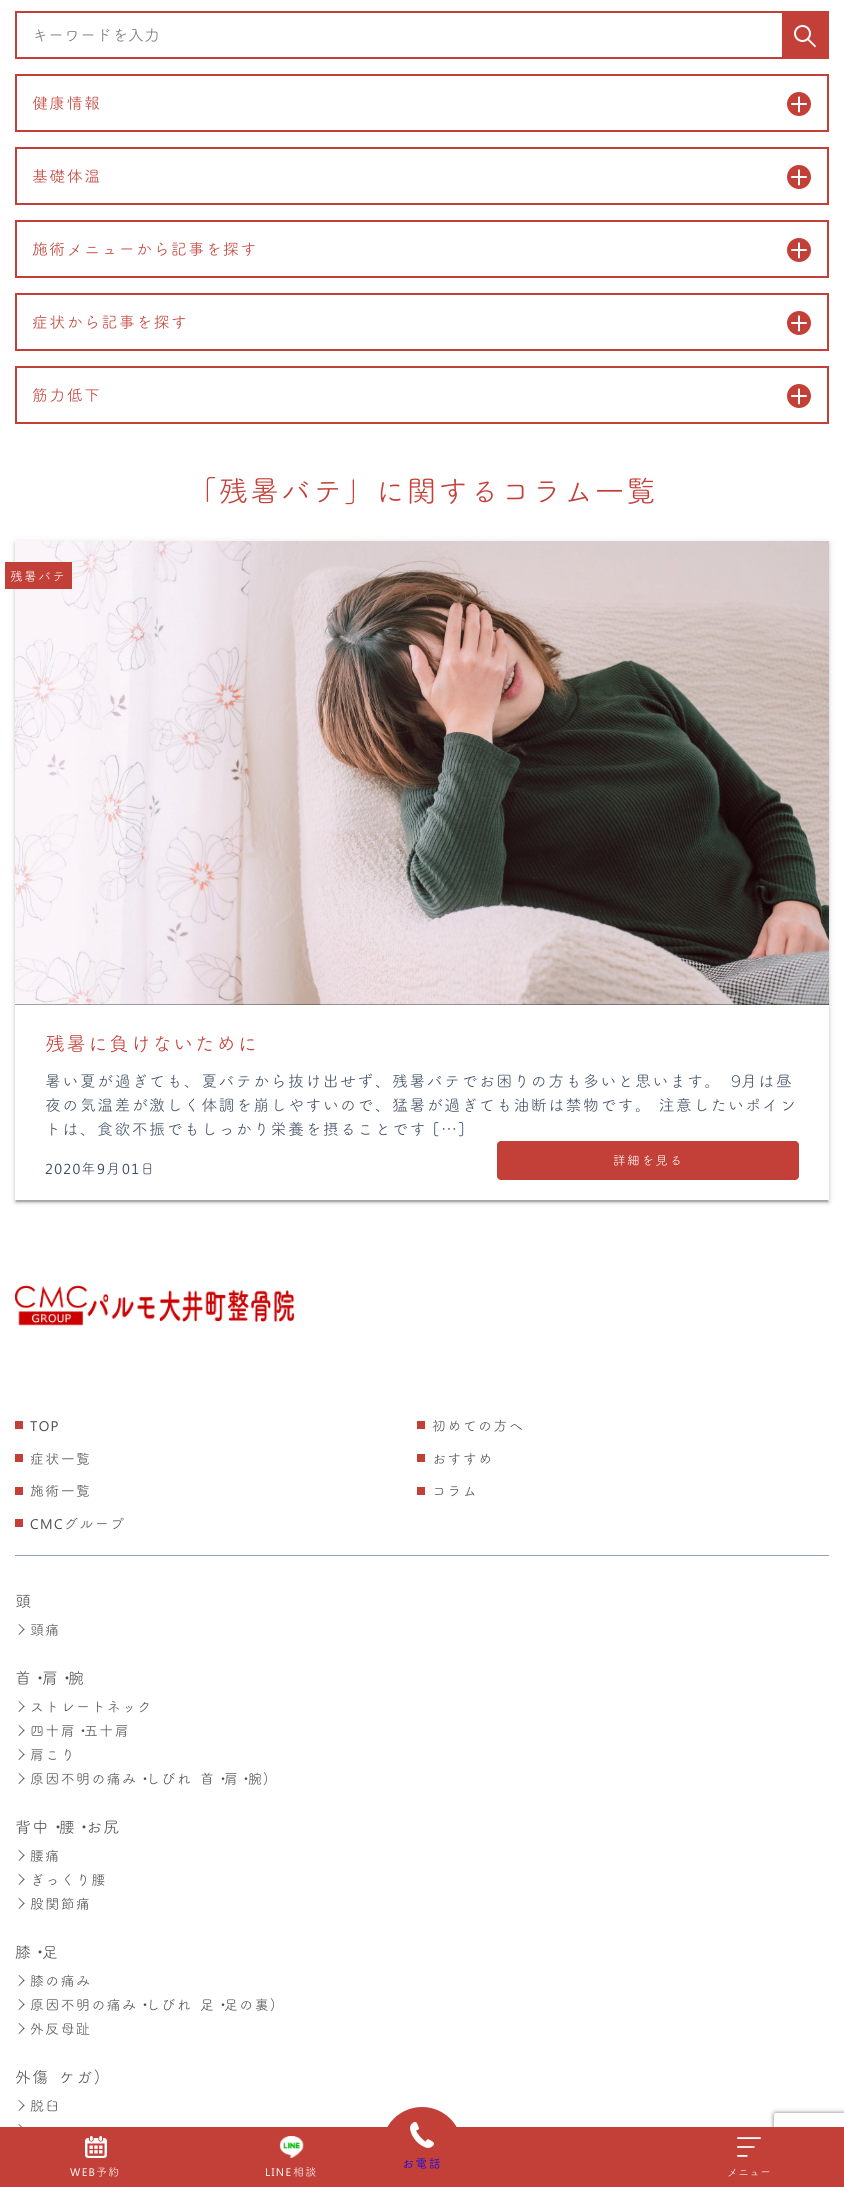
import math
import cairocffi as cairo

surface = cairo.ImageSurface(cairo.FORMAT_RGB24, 844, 2187)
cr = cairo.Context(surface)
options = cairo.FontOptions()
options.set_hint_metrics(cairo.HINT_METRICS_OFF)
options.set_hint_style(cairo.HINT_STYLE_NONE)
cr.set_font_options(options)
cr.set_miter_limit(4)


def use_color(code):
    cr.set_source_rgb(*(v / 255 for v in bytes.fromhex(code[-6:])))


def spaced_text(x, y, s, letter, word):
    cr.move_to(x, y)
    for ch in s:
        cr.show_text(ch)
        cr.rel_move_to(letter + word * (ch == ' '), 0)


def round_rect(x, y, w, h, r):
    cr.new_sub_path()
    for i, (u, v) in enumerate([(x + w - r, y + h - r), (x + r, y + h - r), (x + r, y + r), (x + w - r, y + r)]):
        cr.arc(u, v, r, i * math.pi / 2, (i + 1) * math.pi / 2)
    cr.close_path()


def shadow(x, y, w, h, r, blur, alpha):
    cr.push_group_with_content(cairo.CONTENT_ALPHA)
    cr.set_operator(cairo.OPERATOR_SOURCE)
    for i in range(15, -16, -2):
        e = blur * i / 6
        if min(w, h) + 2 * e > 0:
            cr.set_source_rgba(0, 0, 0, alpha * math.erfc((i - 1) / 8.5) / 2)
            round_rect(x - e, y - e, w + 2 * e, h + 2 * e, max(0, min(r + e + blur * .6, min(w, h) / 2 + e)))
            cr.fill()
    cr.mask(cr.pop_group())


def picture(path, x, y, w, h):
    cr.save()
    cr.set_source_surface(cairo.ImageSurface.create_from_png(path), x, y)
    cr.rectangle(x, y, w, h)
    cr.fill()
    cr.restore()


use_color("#ffffff")
cr.paint()
cr.rectangle(16, 12, 812, 46)
use_color("#c34038")
cr.stroke()
cr.select_font_face("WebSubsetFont")
cr.set_font_size(16)
use_color("#757575")
cr.move_to(32, 41)
cr.show_text("キーワードを入力")
use_color("#c34038")
cr.rectangle(782, 13, 45, 44)
cr.fill()
cr.arc(802.5, 33.5, 7.5, 0, 2 * math.pi)
use_color("#ffffff")
cr.stroke()
cr.new_path()
cr.move_to(807.5, 37.5)
cr.line_to(816, 46)
cr.line_to(815, 47.5)
cr.line_to(806.5, 39)
cr.close_path()
cr.fill()
cr.rectangle(16, 75, 812, 56)
use_color("#c34038")
cr.stroke()
spaced_text(32, 109, "健康情報", 1.35, 0)
cr.new_path()
cr.arc(799, 104, 12, 0, 2 * math.pi)
cr.fill()
use_color("#ffffff")
round_rect(791, 103, 16, 2, 1)
cr.fill()
cr.new_path()
cr.move_to(800, 97.5)
cr.line_to(800, 112)
cr.curve_to(799.5, 112.5, 798.5, 112.5, 798, 112)
cr.line_to(798, 97.5)
cr.curve_to(798, 96, 800, 96, 800, 97.5)
cr.close_path()
cr.fill()
cr.rectangle(16, 148, 812, 56)
use_color("#c34038")
cr.stroke()
spaced_text(32, 182, "基礎体温", 1.35, 0)
cr.new_path()
cr.arc(799, 177, 12, 0, 2 * math.pi)
cr.fill()
use_color("#ffffff")
round_rect(791, 176, 16, 2, 1)
cr.fill()
cr.new_path()
cr.move_to(800, 170.5)
cr.line_to(800, 185)
cr.curve_to(799.5, 185.5, 798.5, 185.5, 798, 185)
cr.line_to(798, 170.5)
cr.curve_to(798, 169, 800, 169, 800, 170.5)
cr.close_path()
cr.fill()
cr.rectangle(16, 221, 812, 56)
use_color("#c34038")
cr.stroke()
spaced_text(32, 255, "施術メニューから記事を探す", 1.35, 0)
cr.new_path()
cr.arc(799, 250, 12, 0, 2 * math.pi)
cr.fill()
use_color("#ffffff")
round_rect(791, 249, 16, 2, 1)
cr.fill()
cr.new_path()
cr.move_to(800, 243.5)
cr.line_to(800, 258)
cr.curve_to(799.5, 258.5, 798.5, 258.5, 798, 258)
cr.line_to(798, 243.5)
cr.curve_to(798, 242, 800, 242, 800, 243.5)
cr.close_path()
cr.fill()
cr.rectangle(16, 294, 812, 56)
use_color("#c34038")
cr.stroke()
spaced_text(32, 328, "症状から記事を探す", 1.35, 0)
cr.new_path()
cr.arc(799, 323, 12, 0, 2 * math.pi)
cr.fill()
use_color("#ffffff")
round_rect(791, 322, 16, 2, 1)
cr.fill()
cr.new_path()
cr.move_to(800, 316.5)
cr.line_to(800, 331)
cr.curve_to(799.5, 331.5, 798.5, 331.5, 798, 331)
cr.line_to(798, 316.5)
cr.curve_to(798, 315, 800, 315, 800, 316.5)
cr.close_path()
cr.fill()
cr.rectangle(16, 367, 812, 56)
use_color("#c34038")
cr.stroke()
spaced_text(32, 401, "筋力低下", 1.35, 0)
cr.new_path()
cr.arc(799, 396, 12, 0, 2 * math.pi)
cr.fill()
use_color("#ffffff")
round_rect(791, 395, 16, 2, 1)
cr.fill()
cr.new_path()
cr.move_to(800, 389.5)
cr.line_to(800, 404)
cr.curve_to(799.5, 404.5, 798.5, 404.5, 798, 404)
cr.line_to(798, 389.5)
cr.curve_to(798, 388, 800, 388, 800, 389.5)
cr.close_path()
cr.fill()
cr.set_font_size(30)
use_color("#c34038")
spaced_text(187, 502, "「残暑バテ」に関するコラム一覧", 1.35, 0)
cr.save()
cr.rectangle(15, 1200, 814, 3)
cr.clip()
use_color("#000000")
shadow(16, 545, 812, 657, 0, 0.5, 0.2)
cr.restore()
cr.save()
cr.set_fill_rule(cairo.FILL_RULE_EVEN_ODD)
cr.new_path()
cr.move_to(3, 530)
cr.line_to(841, 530)
cr.line_to(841, 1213)
cr.line_to(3, 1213)
cr.close_path()
cr.move_to(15, 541)
cr.line_to(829, 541)
cr.line_to(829, 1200)
cr.line_to(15, 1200)
cr.close_path()
cr.clip()
use_color("#000000")
shadow(15, 542, 814, 659, 0, 3.5, 0.12)
cr.restore()
cr.save()
cr.set_fill_rule(cairo.FILL_RULE_EVEN_ODD)
cr.new_path()
cr.move_to(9, 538)
cr.line_to(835, 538)
cr.line_to(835, 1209)
cr.line_to(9, 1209)
cr.close_path()
cr.move_to(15, 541)
cr.line_to(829, 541)
cr.line_to(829, 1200)
cr.line_to(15, 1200)
cr.close_path()
cr.clip()
use_color("#000000")
shadow(15, 544, 814, 659, 0, 1.5, 0.14)
cr.restore()
picture("img1.png", 15, 541, 814, 464)
cr.rectangle(5, 562, 67, 27)
cr.fill()
cr.set_font_size(12.75)
use_color("#ffffff")
spaced_text(10, 581, "残暑バテ", 1.35, 0)
cr.set_font_size(20)
use_color("#c34038")
spaced_text(45, 1051, "残暑に負けないために", 1.35, 0)
cr.set_font_size(16)
use_color("#425065")
spaced_text(45, 1087, "暑い夏が過ぎても、夏バテから抜け出せず、残暑バテでお困りの方も多いと思います。", 1.35, 0)
cr.select_font_face("Noto Sans JP Light")
spaced_text(728, 1087, "９", 1.35, 0)
cr.select_font_face("WebSubsetFont")
spaced_text(741, 1087, "月は昼", 1.35, 0)
spaced_text(45, 1111, "夜の気温差が激しく体調を崩しやすいので、猛暑が過ぎても油断は禁物です。 注意したいポイン", 1.35, 0)
spaced_text(45, 1135, "トは、食欲不振でもしっかり栄養を摂ることです [", 1.35, -1)
cr.select_font_face("Noto Sans JP Light")
spaced_text(441, 1135, "…", 1.35, 0)
cr.select_font_face("WebSubsetFont")
spaced_text(458, 1135, "]", 1.35, 0)
use_color("#c34038")
round_rect(497, 1141, 302, 39, 4)
cr.fill()
cr.set_font_size(12.75)
use_color("#ffffff")
spaced_text(613, 1165, "詳細を見る", 1.35, 0)
cr.select_font_face("Segoe UI")
cr.set_font_size(14.5)
use_color("#425065")
spaced_text(45, 1174, "2020", 1.35, 0)
cr.select_font_face("WebSubsetFont")
spaced_text(81, 1174, "年", 1.35, 0)
cr.select_font_face("Segoe UI")
spaced_text(97, 1174, "9", 1.35, 0)
cr.select_font_face("WebSubsetFont")
spaced_text(106, 1174, "月", 1.35, 0)
cr.select_font_face("Segoe UI")
spaced_text(122, 1174, "01", 1.35, 0)
cr.select_font_face("WebSubsetFont")
spaced_text(140, 1174, "日", 1.35, 0)
picture("img2.png", 15, 1285, 280, 41)
use_color("#93a3bc")
cr.rectangle(15, 1555, 814, 1)
cr.fill()
use_color("#c34038")
cr.rectangle(15, 1421, 8, 8)
cr.fill()
cr.select_font_face("Segoe UI")
cr.set_font_size(14)
use_color("#4f4f4f")
spaced_text(30, 1431, "TOP", 1.35, 0)
use_color("#c34038")
cr.rectangle(417, 1421, 8, 8)
cr.fill()
cr.select_font_face("WebSubsetFont")
use_color("#4f4f4f")
spaced_text(432, 1431, "初めての方へ", 1.35, 0)
use_color("#c34038")
cr.rectangle(15, 1454, 8, 8)
cr.fill()
use_color("#4f4f4f")
spaced_text(30, 1464, "症状一覧", 1.35, 0)
use_color("#c34038")
cr.rectangle(417, 1454, 8, 8)
cr.fill()
use_color("#4f4f4f")
spaced_text(432, 1464, "おすすめ", 1.35, 0)
use_color("#c34038")
cr.rectangle(15, 1487, 8, 8)
cr.fill()
use_color("#4f4f4f")
spaced_text(30, 1496, "施術一覧", 1.35, 0)
use_color("#c34038")
cr.rectangle(417, 1487, 8, 8)
cr.fill()
use_color("#4f4f4f")
spaced_text(432, 1496, "コラム", 1.35, 0)
use_color("#c34038")
cr.rectangle(15, 1519, 8, 8)
cr.fill()
cr.select_font_face("Segoe UI")
use_color("#4f4f4f")
spaced_text(30, 1529, "CMC", 1.35, 0)
cr.select_font_face("WebSubsetFont")
spaced_text(64, 1529, "グループ", 1.35, 0)
cr.set_font_size(16)
spaced_text(15, 1607, "頭", 1.35, 0)
cr.new_path()
cr.move_to(19, 1624)
cr.line_to(24.5, 1629.5)
cr.line_to(24, 1630)
cr.line_to(18.5, 1624.5)
cr.close_path()
cr.fill()
cr.new_path()
cr.move_to(24, 1628.5)
cr.line_to(24.5, 1629.5)
cr.line_to(19, 1635)
cr.line_to(18.5, 1634.5)
cr.close_path()
cr.fill()
cr.set_font_size(14)
spaced_text(30, 1635, "頭痛", 1.35, 0)
cr.set_font_size(16)
spaced_text(15, 1684, "首", 1.35, 0)
cr.select_font_face("Noto Sans JP Light")
spaced_text(32, 1684, "・", 1.35, 0)
cr.select_font_face("WebSubsetFont")
spaced_text(42, 1684, "肩", 1.35, 0)
cr.select_font_face("Noto Sans JP Light")
spaced_text(59, 1684, "・", 1.35, 0)
cr.select_font_face("WebSubsetFont")
spaced_text(68, 1684, "腕", 1.35, 0)
cr.new_path()
cr.move_to(19, 1701)
cr.line_to(24.5, 1706.5)
cr.line_to(24, 1707)
cr.line_to(18.5, 1701.5)
cr.close_path()
cr.fill()
cr.new_path()
cr.move_to(24, 1705.5)
cr.line_to(24.5, 1706.5)
cr.line_to(19, 1712)
cr.line_to(18.5, 1711.5)
cr.close_path()
cr.fill()
cr.set_font_size(14)
spaced_text(30, 1712, "ストレートネック", 1.35, 0)
cr.new_path()
cr.move_to(19, 1725)
cr.line_to(24.5, 1730.5)
cr.line_to(24, 1731)
cr.line_to(18.5, 1725.5)
cr.close_path()
cr.fill()
cr.new_path()
cr.move_to(24, 1729.5)
cr.line_to(24.5, 1730.5)
cr.line_to(19, 1736)
cr.line_to(18.5, 1735.5)
cr.close_path()
cr.fill()
spaced_text(30, 1736, "四十肩", 1.35, 0)
cr.select_font_face("Noto Sans JP Light")
spaced_text(76, 1736, "・", 1.35, 0)
cr.select_font_face("WebSubsetFont")
spaced_text(84, 1736, "五十肩", 1.35, 0)
cr.new_path()
cr.move_to(19, 1749)
cr.line_to(24.5, 1754.5)
cr.line_to(24, 1755)
cr.line_to(18.5, 1749.5)
cr.close_path()
cr.fill()
cr.new_path()
cr.move_to(24, 1753.5)
cr.line_to(24.5, 1754.5)
cr.line_to(19, 1760)
cr.line_to(18.5, 1759.5)
cr.close_path()
cr.fill()
spaced_text(30, 1760, "肩こり", 1.35, 0)
cr.new_path()
cr.move_to(19, 1773)
cr.line_to(24.5, 1778.5)
cr.line_to(24, 1779)
cr.line_to(18.5, 1773.5)
cr.close_path()
cr.fill()
cr.new_path()
cr.move_to(24, 1777.5)
cr.line_to(24.5, 1778.5)
cr.line_to(19, 1784)
cr.line_to(18.5, 1783.5)
cr.close_path()
cr.fill()
spaced_text(30, 1784, "原因不明の痛み", 1.35, 0)
cr.select_font_face("Noto Sans JP Light")
spaced_text(138, 1784, "・", 1.35, 0)
cr.select_font_face("WebSubsetFont")
spaced_text(146, 1784, "しびれ", 1.35, 0)
spaced_text(200, 1784, "首", 1.35, 0)
cr.select_font_face("Noto Sans JP Light")
spaced_text(216, 1784, "・", 1.35, 0)
cr.select_font_face("WebSubsetFont")
spaced_text(224, 1784, "肩", 1.35, 0)
cr.select_font_face("Noto Sans JP Light")
spaced_text(239, 1784, "・", 1.35, 0)
cr.select_font_face("WebSubsetFont")
spaced_text(248, 1784, "腕", 1.35, 0)
cr.select_font_face("Noto Sans JP Light")
spaced_text(263, 1784, "）", 1.35, 0)
cr.select_font_face("WebSubsetFont")
cr.set_font_size(16)
spaced_text(15, 1833, "背中", 1.35, 0)
cr.select_font_face("Noto Sans JP Light")
spaced_text(50, 1833, "・", 1.35, 0)
cr.select_font_face("WebSubsetFont")
spaced_text(59, 1833, "腰", 1.35, 0)
cr.select_font_face("Noto Sans JP Light")
spaced_text(76, 1833, "・", 1.35, 0)
cr.select_font_face("WebSubsetFont")
spaced_text(86, 1833, "お尻", 1.35, 0)
cr.new_path()
cr.move_to(19, 1850)
cr.line_to(24.5, 1855.5)
cr.line_to(24, 1856)
cr.line_to(18.5, 1850.5)
cr.close_path()
cr.fill()
cr.new_path()
cr.move_to(24, 1854.5)
cr.line_to(24.5, 1855.5)
cr.line_to(19, 1861)
cr.line_to(18.5, 1860.5)
cr.close_path()
cr.fill()
cr.set_font_size(14)
spaced_text(30, 1861, "腰痛", 1.35, 0)
cr.new_path()
cr.move_to(19, 1874)
cr.line_to(24.5, 1879.5)
cr.line_to(24, 1880)
cr.line_to(18.5, 1874.5)
cr.close_path()
cr.fill()
cr.new_path()
cr.move_to(24, 1878.5)
cr.line_to(24.5, 1879.5)
cr.line_to(19, 1885)
cr.line_to(18.5, 1884.5)
cr.close_path()
cr.fill()
spaced_text(30, 1885, "ぎっくり腰", 1.35, 0)
cr.new_path()
cr.move_to(19, 1898)
cr.line_to(24.5, 1903.5)
cr.line_to(24, 1904)
cr.line_to(18.5, 1898.5)
cr.close_path()
cr.fill()
cr.new_path()
cr.move_to(24, 1902.5)
cr.line_to(24.5, 1903.5)
cr.line_to(19, 1909)
cr.line_to(18.5, 1908.5)
cr.close_path()
cr.fill()
spaced_text(30, 1909, "股関節痛", 1.35, 0)
cr.set_font_size(16)
spaced_text(15, 1958, "膝", 1.35, 0)
cr.select_font_face("Noto Sans JP Light")
spaced_text(32, 1958, "・", 1.35, 0)
cr.select_font_face("WebSubsetFont")
spaced_text(42, 1958, "足", 1.35, 0)
cr.new_path()
cr.move_to(19, 1975)
cr.line_to(24.5, 1980.5)
cr.line_to(24, 1981)
cr.line_to(18.5, 1975.5)
cr.close_path()
cr.fill()
cr.new_path()
cr.move_to(24, 1979.5)
cr.line_to(24.5, 1980.5)
cr.line_to(19, 1986)
cr.line_to(18.5, 1985.5)
cr.close_path()
cr.fill()
cr.set_font_size(14)
spaced_text(30, 1986, "膝の痛み", 1.35, 0)
cr.new_path()
cr.move_to(19, 1999)
cr.line_to(24.5, 2004.5)
cr.line_to(24, 2005)
cr.line_to(18.5, 1999.5)
cr.close_path()
cr.fill()
cr.new_path()
cr.move_to(24, 2003.5)
cr.line_to(24.5, 2004.5)
cr.line_to(19, 2010)
cr.line_to(18.5, 2009.5)
cr.close_path()
cr.fill()
spaced_text(30, 2010, "原因不明の痛み", 1.35, 0)
cr.select_font_face("Noto Sans JP Light")
spaced_text(138, 2010, "・", 1.35, 0)
cr.select_font_face("WebSubsetFont")
spaced_text(146, 2010, "しびれ", 1.35, 0)
spaced_text(200, 2010, "足", 1.35, 0)
cr.select_font_face("Noto Sans JP Light")
spaced_text(216, 2010, "・", 1.35, 0)
cr.select_font_face("WebSubsetFont")
spaced_text(224, 2010, "足の裏", 1.35, 0)
cr.select_font_face("Noto Sans JP Light")
spaced_text(270, 2010, "）", 1.35, 0)
cr.new_path()
cr.move_to(19, 2023)
cr.line_to(24.5, 2028.5)
cr.line_to(24, 2029)
cr.line_to(18.5, 2023.5)
cr.close_path()
cr.fill()
cr.new_path()
cr.move_to(24, 2027.5)
cr.line_to(24.5, 2028.5)
cr.line_to(19, 2034)
cr.line_to(18.5, 2033.5)
cr.close_path()
cr.fill()
cr.select_font_face("WebSubsetFont")
spaced_text(30, 2034, "外反母", 1.35, 0)
cr.select_font_face("Noto Sans JP Light")
spaced_text(76, 2034, "趾", 1.35, 0)
cr.select_font_face("WebSubsetFont")
cr.set_font_size(16)
spaced_text(15, 2083, "外傷", 1.35, 0)
spaced_text(59, 2083, "ケガ", 1.35, 0)
cr.select_font_face("Noto Sans JP Light")
spaced_text(94, 2083, "）", 1.35, 0)
cr.new_path()
cr.move_to(19, 2100)
cr.line_to(24.5, 2105.5)
cr.line_to(24, 2106)
cr.line_to(18.5, 2100.5)
cr.close_path()
cr.fill()
cr.new_path()
cr.move_to(24, 2104.5)
cr.line_to(24.5, 2105.5)
cr.line_to(19, 2111)
cr.line_to(18.5, 2110.5)
cr.close_path()
cr.move_to(19, 2124)
cr.line_to(24.5, 2129.5)
cr.line_to(24, 2130)
cr.line_to(18.5, 2124.5)
cr.close_path()
cr.fill()
cr.select_font_face("WebSubsetFont")
cr.set_font_size(14)
spaced_text(30, 2111, "脱臼", 1.35, 0)
cr.save()
cr.set_fill_rule(cairo.FILL_RULE_EVEN_ODD)
cr.new_path()
cr.move_to(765, 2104)
cr.line_to(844, 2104)
cr.line_to(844, 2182)
cr.line_to(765, 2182)
cr.close_path()
cr.move_to(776, 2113)
cr.line_to(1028, 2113)
cr.curve_to(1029, 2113, 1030, 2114, 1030, 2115)
cr.line_to(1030, 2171)
cr.curve_to(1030, 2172, 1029, 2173, 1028, 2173)
cr.line_to(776, 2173)
cr.curve_to(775, 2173, 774, 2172, 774, 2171)
cr.line_to(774, 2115)
cr.curve_to(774, 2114, 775, 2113, 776, 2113)
cr.close_path()
cr.clip()
use_color("#808080")
shadow(774, 2113, 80, 60, 2, 2.5, 1)
cr.restore()
use_color("#c34038")
cr.rectangle(0, 2127, 844, 60)
cr.fill()
cr.arc(422, 2147, 40, 0, 2 * math.pi)
cr.fill()
picture("img3.png", 410, 2122, 24, 26)
cr.set_font_size(12)
use_color("#0000ff")
spaced_text(402, 2168, "お電話", 1.35, 0)
picture("img4.png", 85, 2136, 22, 22)
cr.select_font_face("Segoe UI")
cr.set_font_size(11)
use_color("#ffffff")
spaced_text(70, 2176, "WEB", 1.35, 0)
cr.select_font_face("WebSubsetFont")
spaced_text(96, 2176, "予約", 1.35, 0)
picture("img5.png", 279, 2136, 25, 22)
cr.select_font_face("Segoe UI")
spaced_text(265, 2176, "LINE", 1.35, 0)
cr.select_font_face("WebSubsetFont")
spaced_text(293, 2176, "相談", 1.35, 0)
picture("img6.png", 737, 2137, 24, 20)
cr.move_to(727, 2176)
cr.show_text("メニュー")
surface.write_to_png("result.png")
